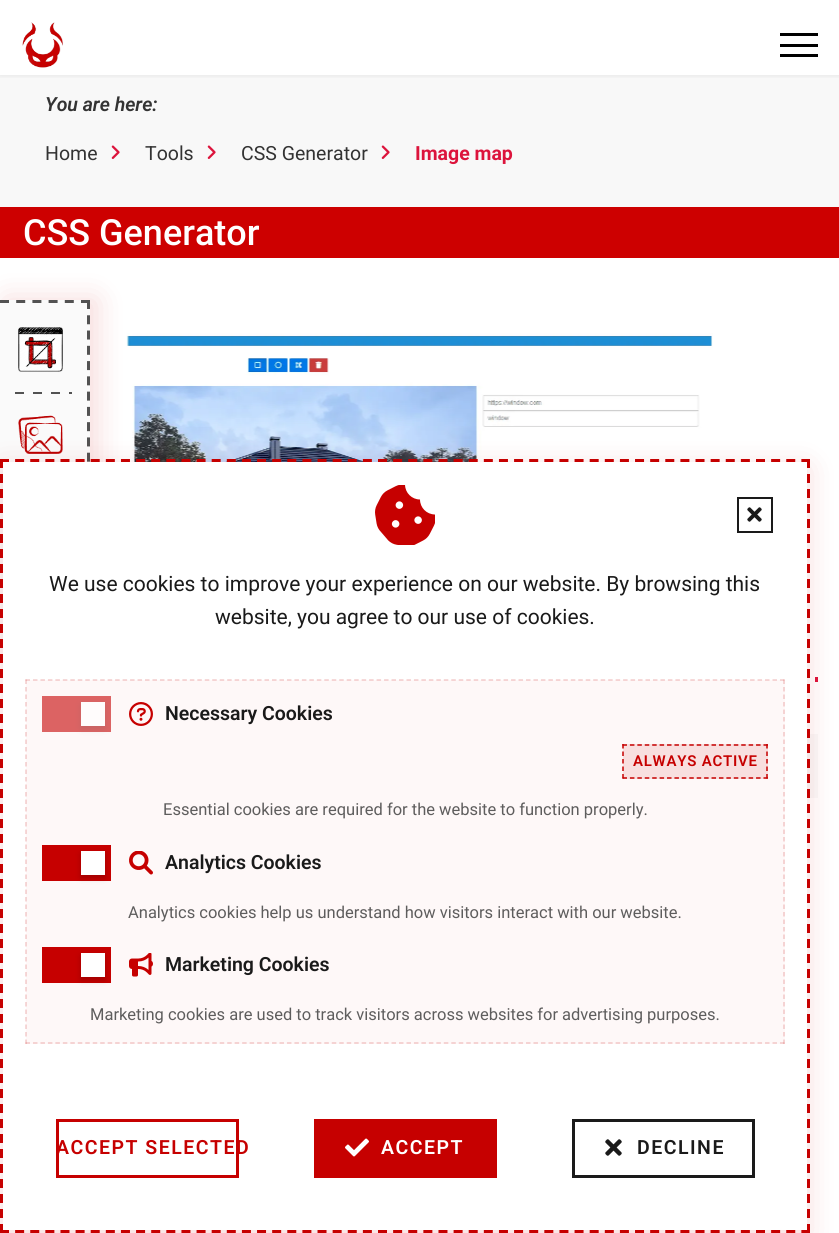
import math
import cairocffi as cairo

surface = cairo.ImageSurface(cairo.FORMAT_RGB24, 839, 1233)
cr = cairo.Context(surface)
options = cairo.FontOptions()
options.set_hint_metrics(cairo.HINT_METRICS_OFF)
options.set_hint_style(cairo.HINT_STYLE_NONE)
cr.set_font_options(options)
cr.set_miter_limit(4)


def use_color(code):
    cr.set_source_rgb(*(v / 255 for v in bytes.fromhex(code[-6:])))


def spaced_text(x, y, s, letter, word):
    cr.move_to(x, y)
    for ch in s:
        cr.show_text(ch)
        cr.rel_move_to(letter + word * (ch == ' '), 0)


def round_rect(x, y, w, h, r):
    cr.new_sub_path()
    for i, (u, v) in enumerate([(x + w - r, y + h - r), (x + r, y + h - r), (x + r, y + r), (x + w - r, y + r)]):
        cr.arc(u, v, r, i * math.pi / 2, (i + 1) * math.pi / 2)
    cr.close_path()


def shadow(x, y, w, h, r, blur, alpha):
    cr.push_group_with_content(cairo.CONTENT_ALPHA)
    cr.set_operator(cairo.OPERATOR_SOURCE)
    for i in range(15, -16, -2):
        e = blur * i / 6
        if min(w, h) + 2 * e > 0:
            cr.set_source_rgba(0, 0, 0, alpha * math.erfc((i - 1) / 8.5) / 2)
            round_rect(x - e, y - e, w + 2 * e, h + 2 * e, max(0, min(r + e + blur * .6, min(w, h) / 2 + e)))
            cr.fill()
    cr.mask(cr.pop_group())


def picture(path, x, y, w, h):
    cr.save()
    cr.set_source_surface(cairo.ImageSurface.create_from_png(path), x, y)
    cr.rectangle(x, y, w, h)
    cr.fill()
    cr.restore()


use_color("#ffffff")
cr.paint()
use_color("#f8f8f8")
cr.rectangle(0, 75, 839, 132)
cr.fill()
cr.save()
cr.rectangle(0, 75, 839, 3)
cr.clip()
use_color("#000000")
shadow(0, 0, 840, 75, 0, 3, 0.1)
cr.restore()
picture("img1.png", 22, 22, 41, 46)
use_color("#000000")
cr.rectangle(780, 33, 38, 3)
cr.fill()
cr.rectangle(780, 44, 38, 3)
cr.fill()
cr.rectangle(780, 54, 38, 3)
cr.fill()
cr.select_font_face("Roboto SemiBold", cairo.FONT_SLANT_ITALIC)
cr.set_font_size(19.5)
use_color("#333333")
cr.move_to(45, 111)
cr.show_text("You are here:")
cr.select_font_face("Roboto")
cr.move_to(45, 160)
cr.show_text("Home")
picture("img2.png", 111, 145, 9, 14)
cr.move_to(145, 160)
cr.show_text("Tools")
picture("img2.png", 207, 145, 9, 14)
cr.move_to(241, 160)
cr.show_text("CSS Generator")
picture("img2.png", 381, 145, 9, 14)
cr.select_font_face("Roboto", cairo.FONT_SLANT_NORMAL, cairo.FONT_WEIGHT_BOLD)
use_color("#dc143c")
cr.move_to(415, 160)
cr.show_text("Image map")
use_color("#cd0000")
cr.rectangle(0, 207, 839, 51)
cr.fill()
cr.select_font_face("Roboto Medium")
cr.set_font_size(36)
use_color("#ffffff")
cr.move_to(23, 245)
cr.show_text("CSS Generator")
picture("img3.png", 126, 333, 587, 129)
gradient = cairo.LinearGradient(23, 679, 839, 679)
gradient.add_color_stop_rgba(0, 0.863, 0.078, 0.235, 1)
gradient.add_color_stop_rgba(0.01, 0.863, 0.078, 0.235, 1)
gradient.add_color_stop_rgba(0.01, 1, 1, 1, 1)
gradient.add_color_stop_rgba(0.03, 1, 1, 1, 1)
gradient.add_color_stop_rgba(0.03, 0.863, 0.078, 0.235, 1)
gradient.add_color_stop_rgba(0.04, 0.863, 0.078, 0.235, 1)
gradient.add_color_stop_rgba(0.04, 1, 1, 1, 1)
gradient.add_color_stop_rgba(0.06, 1, 1, 1, 1)
gradient.add_color_stop_rgba(0.06, 0.863, 0.078, 0.235, 1)
gradient.add_color_stop_rgba(0.07, 0.863, 0.078, 0.235, 1)
gradient.add_color_stop_rgba(0.07, 1, 1, 1, 1)
gradient.add_color_stop_rgba(0.09, 1, 1, 1, 1)
gradient.add_color_stop_rgba(0.09, 0.863, 0.078, 0.235, 1)
gradient.add_color_stop_rgba(0.1, 0.863, 0.078, 0.235, 1)
gradient.add_color_stop_rgba(0.1, 1, 1, 1, 1)
gradient.add_color_stop_rgba(0.12, 1, 1, 1, 1)
gradient.add_color_stop_rgba(0.12, 0.863, 0.078, 0.235, 1)
gradient.add_color_stop_rgba(0.13, 0.863, 0.078, 0.235, 1)
gradient.add_color_stop_rgba(0.13, 1, 1, 1, 1)
gradient.add_color_stop_rgba(0.15, 1, 1, 1, 1)
gradient.add_color_stop_rgba(0.15, 0.863, 0.078, 0.235, 1)
gradient.add_color_stop_rgba(0.16, 0.863, 0.078, 0.235, 1)
gradient.add_color_stop_rgba(0.16, 1, 1, 1, 1)
gradient.add_color_stop_rgba(0.18, 1, 1, 1, 1)
gradient.add_color_stop_rgba(0.18, 0.863, 0.078, 0.235, 1)
gradient.add_color_stop_rgba(0.19, 0.863, 0.078, 0.235, 1)
gradient.add_color_stop_rgba(0.19, 1, 1, 1, 1)
gradient.add_color_stop_rgba(0.21, 1, 1, 1, 1)
gradient.add_color_stop_rgba(0.21, 0.863, 0.078, 0.235, 1)
gradient.add_color_stop_rgba(0.22, 0.863, 0.078, 0.235, 1)
gradient.add_color_stop_rgba(0.22, 1, 1, 1, 1)
gradient.add_color_stop_rgba(0.24, 1, 1, 1, 1)
gradient.add_color_stop_rgba(0.24, 0.863, 0.078, 0.235, 1)
gradient.add_color_stop_rgba(0.25, 0.863, 0.078, 0.235, 1)
gradient.add_color_stop_rgba(0.25, 1, 1, 1, 1)
gradient.add_color_stop_rgba(0.26, 1, 1, 1, 1)
gradient.add_color_stop_rgba(0.26, 0.863, 0.078, 0.235, 1)
gradient.add_color_stop_rgba(0.28, 0.863, 0.078, 0.235, 1)
gradient.add_color_stop_rgba(0.28, 1, 1, 1, 1)
gradient.add_color_stop_rgba(0.29, 1, 1, 1, 1)
gradient.add_color_stop_rgba(0.29, 0.863, 0.078, 0.235, 1)
gradient.add_color_stop_rgba(0.31, 0.863, 0.078, 0.235, 1)
gradient.add_color_stop_rgba(0.31, 1, 1, 1, 1)
gradient.add_color_stop_rgba(0.32, 1, 1, 1, 1)
gradient.add_color_stop_rgba(0.32, 0.863, 0.078, 0.235, 1)
gradient.add_color_stop_rgba(0.34, 0.863, 0.078, 0.235, 1)
gradient.add_color_stop_rgba(0.34, 1, 1, 1, 1)
gradient.add_color_stop_rgba(0.35, 1, 1, 1, 1)
gradient.add_color_stop_rgba(0.35, 0.863, 0.078, 0.235, 1)
gradient.add_color_stop_rgba(0.37, 0.863, 0.078, 0.235, 1)
gradient.add_color_stop_rgba(0.37, 1, 1, 1, 1)
gradient.add_color_stop_rgba(0.38, 1, 1, 1, 1)
gradient.add_color_stop_rgba(0.38, 0.863, 0.078, 0.235, 1)
gradient.add_color_stop_rgba(0.4, 0.863, 0.078, 0.235, 1)
gradient.add_color_stop_rgba(0.4, 1, 1, 1, 1)
gradient.add_color_stop_rgba(0.41, 1, 1, 1, 1)
gradient.add_color_stop_rgba(0.41, 0.863, 0.078, 0.235, 1)
gradient.add_color_stop_rgba(0.43, 0.863, 0.078, 0.235, 1)
gradient.add_color_stop_rgba(0.43, 1, 1, 1, 1)
gradient.add_color_stop_rgba(0.44, 1, 1, 1, 1)
gradient.add_color_stop_rgba(0.44, 0.863, 0.078, 0.235, 1)
gradient.add_color_stop_rgba(0.46, 0.863, 0.078, 0.235, 1)
gradient.add_color_stop_rgba(0.46, 1, 1, 1, 1)
gradient.add_color_stop_rgba(0.47, 1, 1, 1, 1)
gradient.add_color_stop_rgba(0.47, 0.863, 0.078, 0.235, 1)
gradient.add_color_stop_rgba(0.49, 0.863, 0.078, 0.235, 1)
gradient.add_color_stop_rgba(0.49, 1, 1, 1, 1)
gradient.add_color_stop_rgba(0.5, 1, 1, 1, 1)
gradient.add_color_stop_rgba(0.5, 0.863, 0.078, 0.235, 1)
gradient.add_color_stop_rgba(0.51, 0.863, 0.078, 0.235, 1)
gradient.add_color_stop_rgba(0.51, 1, 1, 1, 1)
gradient.add_color_stop_rgba(0.53, 1, 1, 1, 1)
gradient.add_color_stop_rgba(0.53, 0.863, 0.078, 0.235, 1)
gradient.add_color_stop_rgba(0.54, 0.863, 0.078, 0.235, 1)
gradient.add_color_stop_rgba(0.54, 1, 1, 1, 1)
gradient.add_color_stop_rgba(0.56, 1, 1, 1, 1)
gradient.add_color_stop_rgba(0.56, 0.863, 0.078, 0.235, 1)
gradient.add_color_stop_rgba(0.57, 0.863, 0.078, 0.235, 1)
gradient.add_color_stop_rgba(0.57, 1, 1, 1, 1)
gradient.add_color_stop_rgba(0.59, 1, 1, 1, 1)
gradient.add_color_stop_rgba(0.59, 0.863, 0.078, 0.235, 1)
gradient.add_color_stop_rgba(0.6, 0.863, 0.078, 0.235, 1)
gradient.add_color_stop_rgba(0.6, 1, 1, 1, 1)
gradient.add_color_stop_rgba(0.62, 1, 1, 1, 1)
gradient.add_color_stop_rgba(0.62, 0.863, 0.078, 0.235, 1)
gradient.add_color_stop_rgba(0.63, 0.863, 0.078, 0.235, 1)
gradient.add_color_stop_rgba(0.63, 1, 1, 1, 1)
gradient.add_color_stop_rgba(0.65, 1, 1, 1, 1)
gradient.add_color_stop_rgba(0.65, 0.863, 0.078, 0.235, 1)
gradient.add_color_stop_rgba(0.66, 0.863, 0.078, 0.235, 1)
gradient.add_color_stop_rgba(0.66, 1, 1, 1, 1)
gradient.add_color_stop_rgba(0.68, 1, 1, 1, 1)
gradient.add_color_stop_rgba(0.68, 0.863, 0.078, 0.235, 1)
gradient.add_color_stop_rgba(0.69, 0.863, 0.078, 0.235, 1)
gradient.add_color_stop_rgba(0.69, 1, 1, 1, 1)
gradient.add_color_stop_rgba(0.71, 1, 1, 1, 1)
gradient.add_color_stop_rgba(0.71, 0.863, 0.078, 0.235, 1)
gradient.add_color_stop_rgba(0.72, 0.863, 0.078, 0.235, 1)
gradient.add_color_stop_rgba(0.72, 1, 1, 1, 1)
gradient.add_color_stop_rgba(0.74, 1, 1, 1, 1)
gradient.add_color_stop_rgba(0.74, 0.863, 0.078, 0.235, 1)
gradient.add_color_stop_rgba(0.75, 0.863, 0.078, 0.235, 1)
gradient.add_color_stop_rgba(0.75, 1, 1, 1, 1)
gradient.add_color_stop_rgba(0.76, 1, 1, 1, 1)
gradient.add_color_stop_rgba(0.76, 0.863, 0.078, 0.235, 1)
gradient.add_color_stop_rgba(0.78, 0.863, 0.078, 0.235, 1)
gradient.add_color_stop_rgba(0.78, 1, 1, 1, 1)
gradient.add_color_stop_rgba(0.79, 1, 1, 1, 1)
gradient.add_color_stop_rgba(0.79, 0.863, 0.078, 0.235, 1)
gradient.add_color_stop_rgba(0.81, 0.863, 0.078, 0.235, 1)
gradient.add_color_stop_rgba(0.81, 1, 1, 1, 1)
gradient.add_color_stop_rgba(0.82, 1, 1, 1, 1)
gradient.add_color_stop_rgba(0.82, 0.863, 0.078, 0.235, 1)
gradient.add_color_stop_rgba(0.84, 0.863, 0.078, 0.235, 1)
gradient.add_color_stop_rgba(0.84, 1, 1, 1, 1)
gradient.add_color_stop_rgba(0.85, 1, 1, 1, 1)
gradient.add_color_stop_rgba(0.85, 0.863, 0.078, 0.235, 1)
gradient.add_color_stop_rgba(0.87, 0.863, 0.078, 0.235, 1)
gradient.add_color_stop_rgba(0.87, 1, 1, 1, 1)
gradient.add_color_stop_rgba(0.88, 1, 1, 1, 1)
gradient.add_color_stop_rgba(0.88, 0.863, 0.078, 0.235, 1)
gradient.add_color_stop_rgba(0.9, 0.863, 0.078, 0.235, 1)
gradient.add_color_stop_rgba(0.9, 1, 1, 1, 1)
gradient.add_color_stop_rgba(0.91, 1, 1, 1, 1)
gradient.add_color_stop_rgba(0.91, 0.863, 0.078, 0.235, 1)
gradient.add_color_stop_rgba(0.93, 0.863, 0.078, 0.235, 1)
gradient.add_color_stop_rgba(0.93, 1, 1, 1, 1)
gradient.add_color_stop_rgba(0.94, 1, 1, 1, 1)
gradient.add_color_stop_rgba(0.94, 0.863, 0.078, 0.235, 1)
gradient.add_color_stop_rgba(0.96, 0.863, 0.078, 0.235, 1)
gradient.add_color_stop_rgba(0.96, 1, 1, 1, 1)
gradient.add_color_stop_rgba(0.97, 1, 1, 1, 1)
gradient.add_color_stop_rgba(0.97, 0.863, 0.078, 0.235, 1)
gradient.add_color_stop_rgba(0.99, 0.863, 0.078, 0.235, 1)
gradient.add_color_stop_rgba(0.99, 1, 1, 1, 1)
gradient.add_color_stop_rgba(1, 1, 1, 1, 1)
cr.set_source(gradient)
cr.rectangle(807, 677, 11, 5)
cr.fill()
use_color("#f9f9f9")
cr.rectangle(807, 734, 11, 64)
cr.fill()
use_color("#c60000")
shadow(6, 300, 90, 345, 0, 15, 0.15)
use_color("#fafafa")
cr.rectangle(0, 300, 90, 339)
cr.fill()
cr.new_path()
cr.move_to(0, 301.5)
cr.line_to(90, 301.5)
use_color("#525252")
cr.set_line_width(3)
cr.set_dash([9, 7.2])
cr.stroke()
cr.new_path()
cr.move_to(88.5, 300)
cr.line_to(88.5, 645)
cr.set_dash([9, 6.27])
cr.stroke()
picture("img4.png", 18, 327, 45, 45)
gradient = cairo.LinearGradient(15, 392, 87, 392)
gradient.add_color_stop_rgba(0, 0.322, 0.322, 0.322, 1)
gradient.add_color_stop_rgba(0.12, 0.322, 0.322, 0.322, 1)
gradient.add_color_stop_rgba(0.12, 0.98, 0.98, 0.98, 1)
gradient.add_color_stop_rgba(0.25, 0.98, 0.98, 0.98, 1)
gradient.add_color_stop_rgba(0.25, 0.322, 0.322, 0.322, 1)
gradient.add_color_stop_rgba(0.38, 0.322, 0.322, 0.322, 1)
gradient.add_color_stop_rgba(0.38, 0.98, 0.98, 0.98, 1)
gradient.add_color_stop_rgba(0.5, 0.98, 0.98, 0.98, 1)
gradient.add_color_stop_rgba(0.5, 0.322, 0.322, 0.322, 1)
gradient.add_color_stop_rgba(0.62, 0.322, 0.322, 0.322, 1)
gradient.add_color_stop_rgba(0.62, 0.98, 0.98, 0.98, 1)
gradient.add_color_stop_rgba(0.75, 0.98, 0.98, 0.98, 1)
gradient.add_color_stop_rgba(0.75, 0.322, 0.322, 0.322, 1)
gradient.add_color_stop_rgba(0.88, 0.322, 0.322, 0.322, 1)
gradient.add_color_stop_rgba(0.88, 0.98, 0.98, 0.98, 1)
gradient.add_color_stop_rgba(1, 0.98, 0.98, 0.98, 1)
cr.set_source(gradient)
cr.rectangle(15, 392, 57, 2)
cr.fill()
picture("img5.png", 18, 415, 45, 39)
cr.new_path()
cr.move_to(0, 460.5)
cr.line_to(810, 460.5)
use_color("#c60000")
cr.set_dash([9, 6.12])
cr.stroke()
cr.new_path()
cr.move_to(808.5, 459)
cr.line_to(808.5, 1233)
cr.set_dash([9, 6])
cr.stroke()
cr.new_path()
cr.move_to(0, 1231.5)
cr.line_to(810, 1231.5)
cr.set_dash([9, 6.12])
cr.stroke()
cr.new_path()
cr.move_to(1.5, 459)
cr.line_to(1.5, 1233)
cr.set_dash([9, 6])
cr.stroke()
use_color("#c60000")
shadow(3, 468, 804, 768, 0, 15, 0.15)
use_color("#ffffff")
cr.rectangle(3, 462, 804, 768)
cr.fill()
picture("img6.png", 375, 485, 60, 60)
cr.rectangle(738, 498, 34, 34)
use_color("#1a1a1a")
cr.set_line_width(2)
cr.set_dash([])
cr.stroke()
picture("img7.png", 747, 507, 15, 15)
cr.select_font_face("Roboto")
cr.set_font_size(21)
cr.move_to(49, 591)
cr.show_text("We use cookies to improve your experience on our website. By browsing this")
cr.move_to(215, 624)
cr.show_text("website, you agree to our use of cookies.")
use_color("#fef8f8")
cr.rectangle(26, 680, 759, 364)
cr.fill()
cr.new_path()
cr.move_to(25.5, 680)
cr.line_to(784.5, 680)
cr.set_source_rgba(0.776, 0, 0, 0.2)
cr.set_line_width(1.5)
cr.set_dash([4.5, 2.97])
cr.stroke()
cr.new_path()
cr.move_to(784, 679.5)
cr.line_to(784, 1044)
cr.set_dash([4.5, 3])
cr.stroke()
cr.new_path()
cr.move_to(25.5, 1043)
cr.line_to(784.5, 1043)
cr.set_dash([4.5, 2.97])
cr.stroke()
cr.new_path()
cr.move_to(26, 679.5)
cr.line_to(26, 1044)
cr.set_dash([4.5, 3])
cr.stroke()
use_color("#dc6363")
cr.rectangle(42, 696, 69, 36)
cr.fill()
use_color("#666363")
shadow(81, 705, 24, 24, 0, 3, 0.2)
use_color("#fffcfc")
cr.rectangle(81, 702, 24, 24)
cr.fill()
picture("img8.png", 129, 702, 24, 24)
cr.select_font_face("Roboto SemiBold")
cr.set_font_size(19.5)
use_color("#1a1a1a")
cr.move_to(165, 720)
cr.show_text("Necessary Cookies")
use_color("#f8dfdf")
cr.rectangle(623, 744, 145, 35)
cr.fill()
cr.new_path()
cr.move_to(622.5, 745)
cr.line_to(768, 745)
use_color("#c60000")
cr.set_dash([4.5, 2.92])
cr.stroke()
cr.new_path()
cr.move_to(767, 744)
cr.line_to(767, 778.5)
cr.set_dash([4.5, 3])
cr.stroke()
cr.new_path()
cr.move_to(622.5, 778)
cr.line_to(768, 778)
cr.set_dash([4.5, 2.92])
cr.stroke()
cr.new_path()
cr.move_to(623, 744)
cr.line_to(623, 778.5)
cr.set_dash([4.5, 3])
cr.stroke()
cr.set_font_size(15)
spaced_text(633, 766, "ALWAYS ACTIVE", 0.75, 0)
cr.select_font_face("Roboto")
cr.set_font_size(16.5)
use_color("#5e5d5d")
cr.move_to(163, 815)
cr.show_text("Essential cookies are required for the website to function properly.")
use_color("#c60000")
cr.rectangle(42, 845, 69, 36)
cr.fill()
use_color("#000000")
shadow(81, 854, 24, 24, 0, 3, 0.2)
use_color("#ffffff")
cr.rectangle(81, 851, 24, 24)
cr.fill()
picture("img9.png", 129, 851, 24, 24)
cr.select_font_face("Roboto SemiBold")
cr.set_font_size(19.5)
use_color("#1a1a1a")
cr.move_to(165, 869)
cr.show_text("Analytics Cookies")
cr.select_font_face("Roboto")
cr.set_font_size(16.5)
use_color("#5e5d5d")
cr.move_to(128, 918)
cr.show_text("Analytics cookies help us understand how visitors interact with our website.")
use_color("#c60000")
cr.rectangle(42, 947, 69, 36)
cr.fill()
use_color("#000000")
shadow(81, 956, 24, 24, 0, 3, 0.2)
use_color("#ffffff")
cr.rectangle(81, 953, 24, 24)
cr.fill()
picture("img10.png", 129, 953, 24, 24)
cr.select_font_face("Roboto SemiBold")
cr.set_font_size(19.5)
use_color("#1a1a1a")
cr.move_to(165, 971)
cr.show_text("Marketing Cookies")
cr.select_font_face("Roboto")
cr.set_font_size(16.5)
use_color("#5e5d5d")
cr.move_to(90, 1020)
cr.show_text("Marketing cookies are used to track visitors across websites for advertising purposes.")
cr.rectangle(57.5, 1120.5, 180, 56)
use_color("#c60000")
cr.set_line_width(3)
cr.set_dash([])
cr.stroke()
cr.select_font_face("Roboto SemiBold")
cr.set_font_size(19.5)
spaced_text(56, 1154, "ACCEPT SELECTED", 1.5, 0)
cr.rectangle(314, 1119, 183, 59)
cr.fill()
picture("img11.png", 345, 1138, 24, 19)
use_color("#ffffff")
spaced_text(381, 1154, "ACCEPT", 1.5, 0)
cr.rectangle(573.5, 1120.5, 180, 56)
use_color("#1a1a1a")
cr.stroke()
picture("img12.png", 605, 1139, 17, 17)
spaced_text(637, 1154, "DECLINE", 1.5, 0)
surface.write_to_png("result.png")
